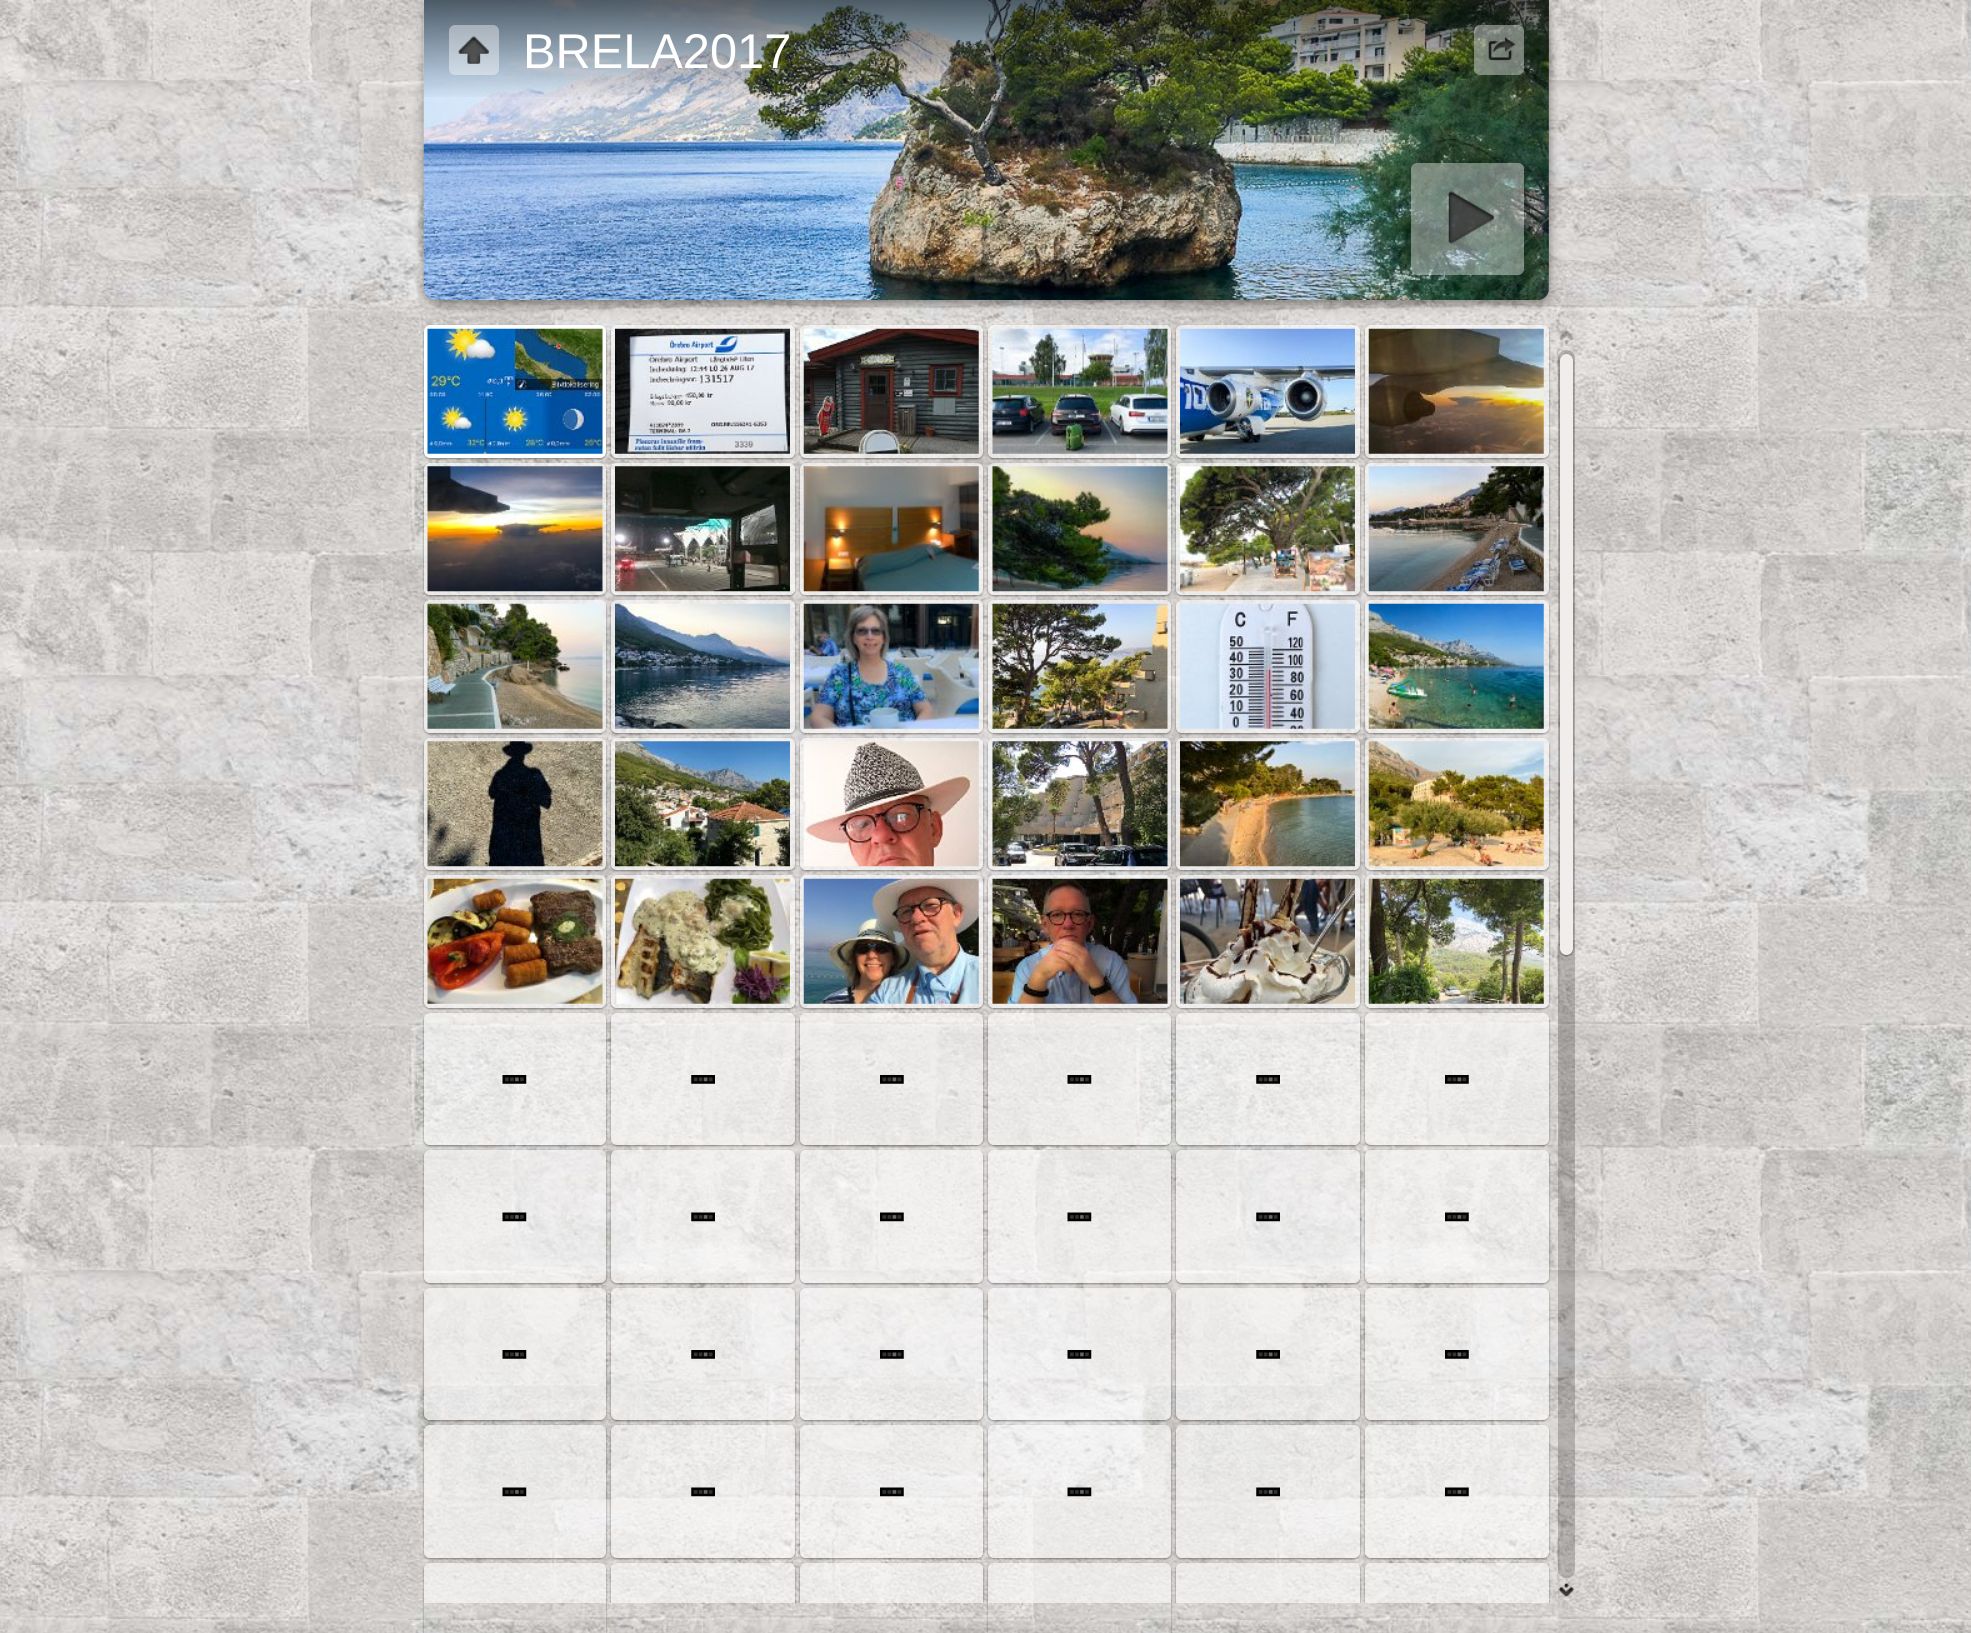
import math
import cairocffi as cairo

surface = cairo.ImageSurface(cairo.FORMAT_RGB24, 1971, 1633)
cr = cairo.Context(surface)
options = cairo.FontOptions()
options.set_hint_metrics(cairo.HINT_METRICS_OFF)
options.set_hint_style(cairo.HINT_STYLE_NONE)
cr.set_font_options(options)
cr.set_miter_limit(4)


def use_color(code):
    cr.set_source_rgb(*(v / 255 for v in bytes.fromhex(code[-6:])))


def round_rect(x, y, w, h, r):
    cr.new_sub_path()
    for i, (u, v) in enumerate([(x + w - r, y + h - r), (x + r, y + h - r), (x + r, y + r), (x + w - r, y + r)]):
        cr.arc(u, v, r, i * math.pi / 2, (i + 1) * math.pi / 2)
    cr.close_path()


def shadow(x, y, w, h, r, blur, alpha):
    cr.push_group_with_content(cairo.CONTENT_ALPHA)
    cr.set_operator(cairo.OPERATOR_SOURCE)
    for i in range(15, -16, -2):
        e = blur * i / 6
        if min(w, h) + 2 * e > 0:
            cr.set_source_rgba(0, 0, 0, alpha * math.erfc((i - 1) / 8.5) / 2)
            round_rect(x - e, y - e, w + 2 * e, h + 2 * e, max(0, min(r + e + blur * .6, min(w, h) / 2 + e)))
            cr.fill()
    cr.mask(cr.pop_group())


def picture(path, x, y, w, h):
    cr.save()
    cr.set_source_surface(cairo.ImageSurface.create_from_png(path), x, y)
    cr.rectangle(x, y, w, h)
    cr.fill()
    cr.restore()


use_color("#ffffff")
cr.paint()
picture("img1.png", 0, 0, 1971, 1633)
use_color("#000000")
shadow(425, 4, 1125, 300, 11, 5, 0.4)
cr.set_source_rgba(0, 0, 0, 0.2)
cr.new_path()
cr.move_to(424, 0)
cr.line_to(1549, 0)
cr.line_to(1549, 289)
cr.curve_to(1549, 295, 1544, 300, 1538, 300)
cr.line_to(435, 300)
cr.curve_to(429, 300, 424, 295, 424, 289)
cr.close_path()
cr.fill()
picture("img2.png", 423, 0, 1126, 300)
gradient = cairo.LinearGradient(986, 0, 986, 101)
gradient.add_color_stop_rgba(0, 0, 0, 0, 0.6)
gradient.add_color_stop_rgba(1, 0, 0, 0, 0)
cr.set_source(gradient)
cr.rectangle(424, 0, 1125, 97)
cr.fill()
cr.set_source_rgba(1, 1, 1, 0.4)
round_rect(449, 25, 50, 50, 6)
cr.fill()
picture("img3.png", 458, 36, 31, 28)
cr.select_font_face("Liberation Sans")
cr.set_font_size(48.75)
use_color("#ffffff")
cr.move_to(523, 68)
cr.show_text("BRELA2017")
cr.set_source_rgba(1, 1, 1, 0.4)
round_rect(1474, 25, 50, 50, 6)
cr.fill()
picture("img4.png", 1488, 37, 28, 24)
round_rect(1411, 163, 113, 112, 6)
cr.fill()
picture("img5.png", 1448, 191, 46, 53)
use_color("#000000")
shadow(424, 326, 182, 133, 6, 1, 0.4)
use_color("#ffffff")
round_rect(424, 325, 182, 133, 6)
cr.fill()
picture("img6.png", 427, 328, 176, 126)
cr.save()
cr.set_fill_rule(cairo.FILL_RULE_EVEN_ODD)
cr.new_path()
cr.move_to(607, 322)
cr.line_to(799, 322)
cr.line_to(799, 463)
cr.line_to(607, 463)
cr.close_path()
cr.move_to(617, 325)
cr.line_to(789, 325)
cr.curve_to(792.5, 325, 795, 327.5, 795, 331)
cr.line_to(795, 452)
cr.curve_to(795, 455.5, 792.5, 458, 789, 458)
cr.line_to(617, 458)
cr.curve_to(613.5, 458, 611, 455.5, 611, 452)
cr.line_to(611, 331)
cr.curve_to(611, 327.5, 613.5, 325, 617, 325)
cr.close_path()
cr.clip()
use_color("#000000")
shadow(611, 326, 184, 133, 6, 1, 0.4)
cr.restore()
cr.set_source_rgba(1, 1, 1, 0.6)
round_rect(611, 325, 184, 133, 6)
cr.fill()
picture("img7.png", 615, 328, 175, 126)
cr.save()
cr.set_fill_rule(cairo.FILL_RULE_EVEN_ODD)
cr.new_path()
cr.move_to(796, 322)
cr.line_to(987, 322)
cr.line_to(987, 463)
cr.line_to(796, 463)
cr.close_path()
cr.move_to(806, 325)
cr.line_to(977, 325)
cr.curve_to(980.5, 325, 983, 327.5, 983, 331)
cr.line_to(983, 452)
cr.curve_to(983, 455.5, 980.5, 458, 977, 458)
cr.line_to(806, 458)
cr.curve_to(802.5, 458, 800, 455.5, 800, 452)
cr.line_to(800, 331)
cr.curve_to(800, 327.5, 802.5, 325, 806, 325)
cr.close_path()
cr.clip()
use_color("#000000")
shadow(800, 326, 183, 133, 6, 1, 0.4)
cr.restore()
round_rect(800, 325, 183, 133, 6)
cr.fill()
picture("img8.png", 803, 328, 176, 126)
cr.save()
cr.set_fill_rule(cairo.FILL_RULE_EVEN_ODD)
cr.new_path()
cr.move_to(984, 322)
cr.line_to(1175, 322)
cr.line_to(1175, 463)
cr.line_to(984, 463)
cr.close_path()
cr.move_to(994, 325)
cr.line_to(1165, 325)
cr.curve_to(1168.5, 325, 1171, 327.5, 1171, 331)
cr.line_to(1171, 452)
cr.curve_to(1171, 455.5, 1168.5, 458, 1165, 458)
cr.line_to(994, 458)
cr.curve_to(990.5, 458, 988, 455.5, 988, 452)
cr.line_to(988, 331)
cr.curve_to(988, 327.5, 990.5, 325, 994, 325)
cr.close_path()
cr.clip()
use_color("#000000")
shadow(988, 326, 183, 133, 6, 1, 0.4)
cr.restore()
round_rect(988, 325, 183, 133, 6)
cr.fill()
picture("img9.png", 992, 328, 176, 126)
cr.save()
cr.set_fill_rule(cairo.FILL_RULE_EVEN_ODD)
cr.new_path()
cr.move_to(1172, 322)
cr.line_to(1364, 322)
cr.line_to(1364, 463)
cr.line_to(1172, 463)
cr.close_path()
cr.move_to(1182, 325)
cr.line_to(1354, 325)
cr.curve_to(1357.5, 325, 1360, 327.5, 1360, 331)
cr.line_to(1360, 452)
cr.curve_to(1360, 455.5, 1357.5, 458, 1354, 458)
cr.line_to(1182, 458)
cr.curve_to(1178.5, 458, 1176, 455.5, 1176, 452)
cr.line_to(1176, 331)
cr.curve_to(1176, 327.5, 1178.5, 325, 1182, 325)
cr.close_path()
cr.clip()
use_color("#000000")
shadow(1176, 326, 184, 133, 6, 1, 0.4)
cr.restore()
round_rect(1176, 325, 184, 133, 6)
cr.fill()
picture("img10.png", 1180, 328, 175, 126)
cr.save()
cr.set_fill_rule(cairo.FILL_RULE_EVEN_ODD)
cr.new_path()
cr.move_to(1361, 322)
cr.line_to(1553, 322)
cr.line_to(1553, 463)
cr.line_to(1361, 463)
cr.close_path()
cr.move_to(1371, 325)
cr.line_to(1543, 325)
cr.curve_to(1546.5, 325, 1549, 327.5, 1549, 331)
cr.line_to(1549, 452)
cr.curve_to(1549, 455.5, 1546.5, 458, 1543, 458)
cr.line_to(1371, 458)
cr.curve_to(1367.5, 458, 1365, 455.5, 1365, 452)
cr.line_to(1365, 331)
cr.curve_to(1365, 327.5, 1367.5, 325, 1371, 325)
cr.close_path()
cr.clip()
use_color("#000000")
shadow(1365, 326, 184, 133, 6, 1, 0.4)
cr.restore()
round_rect(1365, 325, 184, 133, 6)
cr.fill()
picture("img11.png", 1368, 328, 176, 126)
cr.save()
cr.set_fill_rule(cairo.FILL_RULE_EVEN_ODD)
cr.new_path()
cr.move_to(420, 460)
cr.line_to(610, 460)
cr.line_to(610, 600)
cr.line_to(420, 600)
cr.close_path()
cr.move_to(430, 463)
cr.line_to(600, 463)
cr.curve_to(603.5, 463, 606, 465.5, 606, 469)
cr.line_to(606, 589)
cr.curve_to(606, 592.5, 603.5, 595, 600, 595)
cr.line_to(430, 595)
cr.curve_to(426.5, 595, 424, 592.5, 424, 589)
cr.line_to(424, 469)
cr.curve_to(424, 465.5, 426.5, 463, 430, 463)
cr.close_path()
cr.clip()
use_color("#000000")
shadow(424, 464, 182, 132, 6, 1, 0.4)
cr.restore()
round_rect(424, 463, 182, 132, 6)
cr.fill()
picture("img12.png", 427, 466, 176, 126)
cr.save()
cr.set_fill_rule(cairo.FILL_RULE_EVEN_ODD)
cr.new_path()
cr.move_to(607, 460)
cr.line_to(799, 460)
cr.line_to(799, 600)
cr.line_to(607, 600)
cr.close_path()
cr.move_to(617, 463)
cr.line_to(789, 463)
cr.curve_to(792.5, 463, 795, 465.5, 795, 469)
cr.line_to(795, 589)
cr.curve_to(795, 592.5, 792.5, 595, 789, 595)
cr.line_to(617, 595)
cr.curve_to(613.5, 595, 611, 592.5, 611, 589)
cr.line_to(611, 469)
cr.curve_to(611, 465.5, 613.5, 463, 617, 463)
cr.close_path()
cr.clip()
use_color("#000000")
shadow(611, 464, 184, 132, 6, 1, 0.4)
cr.restore()
round_rect(611, 463, 184, 132, 6)
cr.fill()
picture("img13.png", 615, 466, 175, 126)
cr.save()
cr.set_fill_rule(cairo.FILL_RULE_EVEN_ODD)
cr.new_path()
cr.move_to(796, 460)
cr.line_to(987, 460)
cr.line_to(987, 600)
cr.line_to(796, 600)
cr.close_path()
cr.move_to(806, 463)
cr.line_to(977, 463)
cr.curve_to(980.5, 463, 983, 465.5, 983, 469)
cr.line_to(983, 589)
cr.curve_to(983, 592.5, 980.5, 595, 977, 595)
cr.line_to(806, 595)
cr.curve_to(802.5, 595, 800, 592.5, 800, 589)
cr.line_to(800, 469)
cr.curve_to(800, 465.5, 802.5, 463, 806, 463)
cr.close_path()
cr.clip()
use_color("#000000")
shadow(800, 464, 183, 132, 6, 1, 0.4)
cr.restore()
round_rect(800, 463, 183, 132, 6)
cr.fill()
picture("img14.png", 803, 466, 176, 126)
cr.save()
cr.set_fill_rule(cairo.FILL_RULE_EVEN_ODD)
cr.new_path()
cr.move_to(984, 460)
cr.line_to(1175, 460)
cr.line_to(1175, 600)
cr.line_to(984, 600)
cr.close_path()
cr.move_to(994, 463)
cr.line_to(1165, 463)
cr.curve_to(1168.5, 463, 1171, 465.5, 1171, 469)
cr.line_to(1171, 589)
cr.curve_to(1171, 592.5, 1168.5, 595, 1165, 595)
cr.line_to(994, 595)
cr.curve_to(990.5, 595, 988, 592.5, 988, 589)
cr.line_to(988, 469)
cr.curve_to(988, 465.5, 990.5, 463, 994, 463)
cr.close_path()
cr.clip()
use_color("#000000")
shadow(988, 464, 183, 132, 6, 1, 0.4)
cr.restore()
round_rect(988, 463, 183, 132, 6)
cr.fill()
picture("img15.png", 992, 466, 176, 126)
cr.save()
cr.set_fill_rule(cairo.FILL_RULE_EVEN_ODD)
cr.new_path()
cr.move_to(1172, 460)
cr.line_to(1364, 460)
cr.line_to(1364, 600)
cr.line_to(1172, 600)
cr.close_path()
cr.move_to(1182, 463)
cr.line_to(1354, 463)
cr.curve_to(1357.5, 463, 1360, 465.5, 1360, 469)
cr.line_to(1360, 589)
cr.curve_to(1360, 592.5, 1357.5, 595, 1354, 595)
cr.line_to(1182, 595)
cr.curve_to(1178.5, 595, 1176, 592.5, 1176, 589)
cr.line_to(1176, 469)
cr.curve_to(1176, 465.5, 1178.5, 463, 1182, 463)
cr.close_path()
cr.clip()
use_color("#000000")
shadow(1176, 464, 184, 132, 6, 1, 0.4)
cr.restore()
round_rect(1176, 463, 184, 132, 6)
cr.fill()
picture("img16.png", 1180, 466, 175, 126)
cr.save()
cr.set_fill_rule(cairo.FILL_RULE_EVEN_ODD)
cr.new_path()
cr.move_to(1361, 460)
cr.line_to(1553, 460)
cr.line_to(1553, 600)
cr.line_to(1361, 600)
cr.close_path()
cr.move_to(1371, 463)
cr.line_to(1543, 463)
cr.curve_to(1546.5, 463, 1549, 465.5, 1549, 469)
cr.line_to(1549, 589)
cr.curve_to(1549, 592.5, 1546.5, 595, 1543, 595)
cr.line_to(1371, 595)
cr.curve_to(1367.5, 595, 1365, 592.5, 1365, 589)
cr.line_to(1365, 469)
cr.curve_to(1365, 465.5, 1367.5, 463, 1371, 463)
cr.close_path()
cr.clip()
use_color("#000000")
shadow(1365, 464, 184, 132, 6, 1, 0.4)
cr.restore()
round_rect(1365, 463, 184, 132, 6)
cr.fill()
picture("img17.png", 1368, 466, 176, 126)
cr.save()
cr.set_fill_rule(cairo.FILL_RULE_EVEN_ODD)
cr.new_path()
cr.move_to(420, 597)
cr.line_to(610, 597)
cr.line_to(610, 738)
cr.line_to(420, 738)
cr.close_path()
cr.move_to(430, 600)
cr.line_to(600, 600)
cr.curve_to(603.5, 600, 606, 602.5, 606, 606)
cr.line_to(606, 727)
cr.curve_to(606, 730.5, 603.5, 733, 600, 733)
cr.line_to(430, 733)
cr.curve_to(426.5, 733, 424, 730.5, 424, 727)
cr.line_to(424, 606)
cr.curve_to(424, 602.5, 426.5, 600, 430, 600)
cr.close_path()
cr.clip()
use_color("#000000")
shadow(424, 601, 182, 133, 6, 1, 0.4)
cr.restore()
round_rect(424, 600, 182, 133, 6)
cr.fill()
picture("img18.png", 427, 603, 176, 126)
cr.save()
cr.set_fill_rule(cairo.FILL_RULE_EVEN_ODD)
cr.new_path()
cr.move_to(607, 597)
cr.line_to(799, 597)
cr.line_to(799, 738)
cr.line_to(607, 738)
cr.close_path()
cr.move_to(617, 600)
cr.line_to(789, 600)
cr.curve_to(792.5, 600, 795, 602.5, 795, 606)
cr.line_to(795, 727)
cr.curve_to(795, 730.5, 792.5, 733, 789, 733)
cr.line_to(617, 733)
cr.curve_to(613.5, 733, 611, 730.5, 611, 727)
cr.line_to(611, 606)
cr.curve_to(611, 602.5, 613.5, 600, 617, 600)
cr.close_path()
cr.clip()
use_color("#000000")
shadow(611, 601, 184, 133, 6, 1, 0.4)
cr.restore()
round_rect(611, 600, 184, 133, 6)
cr.fill()
picture("img19.png", 615, 603, 175, 126)
cr.save()
cr.set_fill_rule(cairo.FILL_RULE_EVEN_ODD)
cr.new_path()
cr.move_to(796, 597)
cr.line_to(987, 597)
cr.line_to(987, 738)
cr.line_to(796, 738)
cr.close_path()
cr.move_to(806, 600)
cr.line_to(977, 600)
cr.curve_to(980.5, 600, 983, 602.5, 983, 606)
cr.line_to(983, 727)
cr.curve_to(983, 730.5, 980.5, 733, 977, 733)
cr.line_to(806, 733)
cr.curve_to(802.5, 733, 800, 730.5, 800, 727)
cr.line_to(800, 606)
cr.curve_to(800, 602.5, 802.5, 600, 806, 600)
cr.close_path()
cr.clip()
use_color("#000000")
shadow(800, 601, 183, 133, 6, 1, 0.4)
cr.restore()
round_rect(800, 600, 183, 133, 6)
cr.fill()
picture("img20.png", 803, 603, 176, 126)
cr.save()
cr.set_fill_rule(cairo.FILL_RULE_EVEN_ODD)
cr.new_path()
cr.move_to(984, 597)
cr.line_to(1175, 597)
cr.line_to(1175, 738)
cr.line_to(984, 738)
cr.close_path()
cr.move_to(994, 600)
cr.line_to(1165, 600)
cr.curve_to(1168.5, 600, 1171, 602.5, 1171, 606)
cr.line_to(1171, 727)
cr.curve_to(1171, 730.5, 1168.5, 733, 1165, 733)
cr.line_to(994, 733)
cr.curve_to(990.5, 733, 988, 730.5, 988, 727)
cr.line_to(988, 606)
cr.curve_to(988, 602.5, 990.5, 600, 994, 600)
cr.close_path()
cr.clip()
use_color("#000000")
shadow(988, 601, 183, 133, 6, 1, 0.4)
cr.restore()
round_rect(988, 600, 183, 133, 6)
cr.fill()
picture("img21.png", 992, 603, 176, 126)
cr.save()
cr.set_fill_rule(cairo.FILL_RULE_EVEN_ODD)
cr.new_path()
cr.move_to(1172, 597)
cr.line_to(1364, 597)
cr.line_to(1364, 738)
cr.line_to(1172, 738)
cr.close_path()
cr.move_to(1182, 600)
cr.line_to(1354, 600)
cr.curve_to(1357.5, 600, 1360, 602.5, 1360, 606)
cr.line_to(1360, 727)
cr.curve_to(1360, 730.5, 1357.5, 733, 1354, 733)
cr.line_to(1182, 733)
cr.curve_to(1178.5, 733, 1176, 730.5, 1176, 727)
cr.line_to(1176, 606)
cr.curve_to(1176, 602.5, 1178.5, 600, 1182, 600)
cr.close_path()
cr.clip()
use_color("#000000")
shadow(1176, 601, 184, 133, 6, 1, 0.4)
cr.restore()
round_rect(1176, 600, 184, 133, 6)
cr.fill()
picture("img22.png", 1180, 603, 175, 126)
cr.save()
cr.set_fill_rule(cairo.FILL_RULE_EVEN_ODD)
cr.new_path()
cr.move_to(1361, 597)
cr.line_to(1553, 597)
cr.line_to(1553, 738)
cr.line_to(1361, 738)
cr.close_path()
cr.move_to(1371, 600)
cr.line_to(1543, 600)
cr.curve_to(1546.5, 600, 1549, 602.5, 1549, 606)
cr.line_to(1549, 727)
cr.curve_to(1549, 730.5, 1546.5, 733, 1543, 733)
cr.line_to(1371, 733)
cr.curve_to(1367.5, 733, 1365, 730.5, 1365, 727)
cr.line_to(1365, 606)
cr.curve_to(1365, 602.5, 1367.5, 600, 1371, 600)
cr.close_path()
cr.clip()
use_color("#000000")
shadow(1365, 601, 184, 133, 6, 1, 0.4)
cr.restore()
round_rect(1365, 600, 184, 133, 6)
cr.fill()
picture("img23.png", 1368, 603, 176, 126)
cr.save()
cr.set_fill_rule(cairo.FILL_RULE_EVEN_ODD)
cr.new_path()
cr.move_to(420, 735)
cr.line_to(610, 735)
cr.line_to(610, 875)
cr.line_to(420, 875)
cr.close_path()
cr.move_to(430, 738)
cr.line_to(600, 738)
cr.curve_to(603.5, 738, 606, 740.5, 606, 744)
cr.line_to(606, 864)
cr.curve_to(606, 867.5, 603.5, 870, 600, 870)
cr.line_to(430, 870)
cr.curve_to(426.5, 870, 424, 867.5, 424, 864)
cr.line_to(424, 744)
cr.curve_to(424, 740.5, 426.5, 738, 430, 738)
cr.close_path()
cr.clip()
use_color("#000000")
shadow(424, 739, 182, 132, 6, 1, 0.4)
cr.restore()
round_rect(424, 738, 182, 132, 6)
cr.fill()
picture("img24.png", 427, 741, 176, 126)
cr.save()
cr.set_fill_rule(cairo.FILL_RULE_EVEN_ODD)
cr.new_path()
cr.move_to(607, 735)
cr.line_to(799, 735)
cr.line_to(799, 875)
cr.line_to(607, 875)
cr.close_path()
cr.move_to(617, 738)
cr.line_to(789, 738)
cr.curve_to(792.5, 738, 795, 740.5, 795, 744)
cr.line_to(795, 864)
cr.curve_to(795, 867.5, 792.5, 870, 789, 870)
cr.line_to(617, 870)
cr.curve_to(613.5, 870, 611, 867.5, 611, 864)
cr.line_to(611, 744)
cr.curve_to(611, 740.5, 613.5, 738, 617, 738)
cr.close_path()
cr.clip()
use_color("#000000")
shadow(611, 739, 184, 132, 6, 1, 0.4)
cr.restore()
round_rect(611, 738, 184, 132, 6)
cr.fill()
picture("img25.png", 615, 741, 175, 126)
cr.save()
cr.set_fill_rule(cairo.FILL_RULE_EVEN_ODD)
cr.new_path()
cr.move_to(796, 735)
cr.line_to(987, 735)
cr.line_to(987, 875)
cr.line_to(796, 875)
cr.close_path()
cr.move_to(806, 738)
cr.line_to(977, 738)
cr.curve_to(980.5, 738, 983, 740.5, 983, 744)
cr.line_to(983, 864)
cr.curve_to(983, 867.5, 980.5, 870, 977, 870)
cr.line_to(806, 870)
cr.curve_to(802.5, 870, 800, 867.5, 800, 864)
cr.line_to(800, 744)
cr.curve_to(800, 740.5, 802.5, 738, 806, 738)
cr.close_path()
cr.clip()
use_color("#000000")
shadow(800, 739, 183, 132, 6, 1, 0.4)
cr.restore()
round_rect(800, 738, 183, 132, 6)
cr.fill()
picture("img26.png", 803, 741, 176, 126)
cr.save()
cr.set_fill_rule(cairo.FILL_RULE_EVEN_ODD)
cr.new_path()
cr.move_to(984, 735)
cr.line_to(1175, 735)
cr.line_to(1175, 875)
cr.line_to(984, 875)
cr.close_path()
cr.move_to(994, 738)
cr.line_to(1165, 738)
cr.curve_to(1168.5, 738, 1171, 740.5, 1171, 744)
cr.line_to(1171, 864)
cr.curve_to(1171, 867.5, 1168.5, 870, 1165, 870)
cr.line_to(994, 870)
cr.curve_to(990.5, 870, 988, 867.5, 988, 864)
cr.line_to(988, 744)
cr.curve_to(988, 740.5, 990.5, 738, 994, 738)
cr.close_path()
cr.clip()
use_color("#000000")
shadow(988, 739, 183, 132, 6, 1, 0.4)
cr.restore()
round_rect(988, 738, 183, 132, 6)
cr.fill()
picture("img27.png", 992, 741, 176, 126)
cr.save()
cr.set_fill_rule(cairo.FILL_RULE_EVEN_ODD)
cr.new_path()
cr.move_to(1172, 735)
cr.line_to(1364, 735)
cr.line_to(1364, 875)
cr.line_to(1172, 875)
cr.close_path()
cr.move_to(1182, 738)
cr.line_to(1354, 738)
cr.curve_to(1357.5, 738, 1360, 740.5, 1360, 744)
cr.line_to(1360, 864)
cr.curve_to(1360, 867.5, 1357.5, 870, 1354, 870)
cr.line_to(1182, 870)
cr.curve_to(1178.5, 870, 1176, 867.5, 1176, 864)
cr.line_to(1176, 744)
cr.curve_to(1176, 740.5, 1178.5, 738, 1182, 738)
cr.close_path()
cr.clip()
use_color("#000000")
shadow(1176, 739, 184, 132, 6, 1, 0.4)
cr.restore()
round_rect(1176, 738, 184, 132, 6)
cr.fill()
picture("img28.png", 1180, 741, 175, 126)
cr.save()
cr.set_fill_rule(cairo.FILL_RULE_EVEN_ODD)
cr.new_path()
cr.move_to(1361, 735)
cr.line_to(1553, 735)
cr.line_to(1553, 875)
cr.line_to(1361, 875)
cr.close_path()
cr.move_to(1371, 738)
cr.line_to(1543, 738)
cr.curve_to(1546.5, 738, 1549, 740.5, 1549, 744)
cr.line_to(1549, 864)
cr.curve_to(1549, 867.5, 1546.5, 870, 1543, 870)
cr.line_to(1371, 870)
cr.curve_to(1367.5, 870, 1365, 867.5, 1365, 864)
cr.line_to(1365, 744)
cr.curve_to(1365, 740.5, 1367.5, 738, 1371, 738)
cr.close_path()
cr.clip()
use_color("#000000")
shadow(1365, 739, 184, 132, 6, 1, 0.4)
cr.restore()
round_rect(1365, 738, 184, 132, 6)
cr.fill()
picture("img29.png", 1368, 741, 176, 126)
cr.save()
cr.set_fill_rule(cairo.FILL_RULE_EVEN_ODD)
cr.new_path()
cr.move_to(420, 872)
cr.line_to(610, 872)
cr.line_to(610, 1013)
cr.line_to(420, 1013)
cr.close_path()
cr.move_to(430, 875)
cr.line_to(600, 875)
cr.curve_to(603.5, 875, 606, 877.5, 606, 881)
cr.line_to(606, 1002)
cr.curve_to(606, 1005.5, 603.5, 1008, 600, 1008)
cr.line_to(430, 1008)
cr.curve_to(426.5, 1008, 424, 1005.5, 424, 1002)
cr.line_to(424, 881)
cr.curve_to(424, 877.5, 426.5, 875, 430, 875)
cr.close_path()
cr.clip()
use_color("#000000")
shadow(424, 876, 182, 133, 6, 1, 0.4)
cr.restore()
round_rect(424, 875, 182, 133, 6)
cr.fill()
picture("img30.png", 427, 878, 176, 126)
cr.save()
cr.set_fill_rule(cairo.FILL_RULE_EVEN_ODD)
cr.new_path()
cr.move_to(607, 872)
cr.line_to(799, 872)
cr.line_to(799, 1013)
cr.line_to(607, 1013)
cr.close_path()
cr.move_to(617, 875)
cr.line_to(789, 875)
cr.curve_to(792.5, 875, 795, 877.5, 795, 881)
cr.line_to(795, 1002)
cr.curve_to(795, 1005.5, 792.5, 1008, 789, 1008)
cr.line_to(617, 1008)
cr.curve_to(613.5, 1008, 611, 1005.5, 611, 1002)
cr.line_to(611, 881)
cr.curve_to(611, 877.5, 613.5, 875, 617, 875)
cr.close_path()
cr.clip()
use_color("#000000")
shadow(611, 876, 184, 133, 6, 1, 0.4)
cr.restore()
round_rect(611, 875, 184, 133, 6)
cr.fill()
picture("img31.png", 615, 878, 175, 126)
cr.save()
cr.set_fill_rule(cairo.FILL_RULE_EVEN_ODD)
cr.new_path()
cr.move_to(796, 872)
cr.line_to(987, 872)
cr.line_to(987, 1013)
cr.line_to(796, 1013)
cr.close_path()
cr.move_to(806, 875)
cr.line_to(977, 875)
cr.curve_to(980.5, 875, 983, 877.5, 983, 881)
cr.line_to(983, 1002)
cr.curve_to(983, 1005.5, 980.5, 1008, 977, 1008)
cr.line_to(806, 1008)
cr.curve_to(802.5, 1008, 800, 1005.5, 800, 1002)
cr.line_to(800, 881)
cr.curve_to(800, 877.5, 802.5, 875, 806, 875)
cr.close_path()
cr.clip()
use_color("#000000")
shadow(800, 876, 183, 133, 6, 1, 0.4)
cr.restore()
round_rect(800, 875, 183, 133, 6)
cr.fill()
picture("img32.png", 803, 878, 176, 126)
cr.save()
cr.set_fill_rule(cairo.FILL_RULE_EVEN_ODD)
cr.new_path()
cr.move_to(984, 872)
cr.line_to(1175, 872)
cr.line_to(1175, 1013)
cr.line_to(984, 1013)
cr.close_path()
cr.move_to(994, 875)
cr.line_to(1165, 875)
cr.curve_to(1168.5, 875, 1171, 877.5, 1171, 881)
cr.line_to(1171, 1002)
cr.curve_to(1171, 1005.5, 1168.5, 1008, 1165, 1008)
cr.line_to(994, 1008)
cr.curve_to(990.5, 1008, 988, 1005.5, 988, 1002)
cr.line_to(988, 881)
cr.curve_to(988, 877.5, 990.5, 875, 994, 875)
cr.close_path()
cr.clip()
use_color("#000000")
shadow(988, 876, 183, 133, 6, 1, 0.4)
cr.restore()
round_rect(988, 875, 183, 133, 6)
cr.fill()
picture("img33.png", 992, 878, 176, 126)
cr.save()
cr.set_fill_rule(cairo.FILL_RULE_EVEN_ODD)
cr.new_path()
cr.move_to(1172, 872)
cr.line_to(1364, 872)
cr.line_to(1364, 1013)
cr.line_to(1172, 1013)
cr.close_path()
cr.move_to(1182, 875)
cr.line_to(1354, 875)
cr.curve_to(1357.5, 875, 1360, 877.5, 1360, 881)
cr.line_to(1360, 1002)
cr.curve_to(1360, 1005.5, 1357.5, 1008, 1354, 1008)
cr.line_to(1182, 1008)
cr.curve_to(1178.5, 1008, 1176, 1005.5, 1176, 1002)
cr.line_to(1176, 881)
cr.curve_to(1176, 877.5, 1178.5, 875, 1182, 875)
cr.close_path()
cr.clip()
use_color("#000000")
shadow(1176, 876, 184, 133, 6, 1, 0.4)
cr.restore()
round_rect(1176, 875, 184, 133, 6)
cr.fill()
picture("img34.png", 1180, 878, 175, 126)
cr.save()
cr.set_fill_rule(cairo.FILL_RULE_EVEN_ODD)
cr.new_path()
cr.move_to(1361, 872)
cr.line_to(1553, 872)
cr.line_to(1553, 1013)
cr.line_to(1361, 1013)
cr.close_path()
cr.move_to(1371, 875)
cr.line_to(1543, 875)
cr.curve_to(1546.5, 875, 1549, 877.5, 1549, 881)
cr.line_to(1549, 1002)
cr.curve_to(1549, 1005.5, 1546.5, 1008, 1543, 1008)
cr.line_to(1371, 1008)
cr.curve_to(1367.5, 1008, 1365, 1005.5, 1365, 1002)
cr.line_to(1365, 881)
cr.curve_to(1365, 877.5, 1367.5, 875, 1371, 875)
cr.close_path()
cr.clip()
use_color("#000000")
shadow(1365, 876, 184, 133, 6, 1, 0.4)
cr.restore()
round_rect(1365, 875, 184, 133, 6)
cr.fill()
picture("img35.png", 1368, 878, 176, 126)
cr.save()
cr.set_fill_rule(cairo.FILL_RULE_EVEN_ODD)
cr.new_path()
cr.move_to(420, 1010)
cr.line_to(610, 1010)
cr.line_to(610, 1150)
cr.line_to(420, 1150)
cr.close_path()
cr.move_to(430, 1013)
cr.line_to(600, 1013)
cr.curve_to(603.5, 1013, 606, 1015.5, 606, 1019)
cr.line_to(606, 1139)
cr.curve_to(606, 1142.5, 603.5, 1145, 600, 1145)
cr.line_to(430, 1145)
cr.curve_to(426.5, 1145, 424, 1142.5, 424, 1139)
cr.line_to(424, 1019)
cr.curve_to(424, 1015.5, 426.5, 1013, 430, 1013)
cr.close_path()
cr.clip()
use_color("#000000")
shadow(424, 1014, 182, 132, 6, 1, 0.4)
cr.restore()
round_rect(424, 1013, 182, 132, 6)
cr.fill()
picture("img36.png", 502, 1075, 25, 9)
cr.save()
cr.set_fill_rule(cairo.FILL_RULE_EVEN_ODD)
cr.new_path()
cr.move_to(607, 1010)
cr.line_to(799, 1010)
cr.line_to(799, 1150)
cr.line_to(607, 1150)
cr.close_path()
cr.move_to(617, 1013)
cr.line_to(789, 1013)
cr.curve_to(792.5, 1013, 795, 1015.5, 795, 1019)
cr.line_to(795, 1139)
cr.curve_to(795, 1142.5, 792.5, 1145, 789, 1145)
cr.line_to(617, 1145)
cr.curve_to(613.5, 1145, 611, 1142.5, 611, 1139)
cr.line_to(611, 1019)
cr.curve_to(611, 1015.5, 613.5, 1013, 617, 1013)
cr.close_path()
cr.clip()
use_color("#000000")
shadow(611, 1014, 184, 132, 6, 1, 0.4)
cr.restore()
round_rect(611, 1013, 184, 132, 6)
cr.fill()
picture("img37.png", 691, 1075, 24, 9)
cr.save()
cr.set_fill_rule(cairo.FILL_RULE_EVEN_ODD)
cr.new_path()
cr.move_to(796, 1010)
cr.line_to(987, 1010)
cr.line_to(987, 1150)
cr.line_to(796, 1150)
cr.close_path()
cr.move_to(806, 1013)
cr.line_to(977, 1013)
cr.curve_to(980.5, 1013, 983, 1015.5, 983, 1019)
cr.line_to(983, 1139)
cr.curve_to(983, 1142.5, 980.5, 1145, 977, 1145)
cr.line_to(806, 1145)
cr.curve_to(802.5, 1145, 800, 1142.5, 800, 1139)
cr.line_to(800, 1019)
cr.curve_to(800, 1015.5, 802.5, 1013, 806, 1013)
cr.close_path()
cr.clip()
use_color("#000000")
shadow(800, 1014, 183, 132, 6, 1, 0.4)
cr.restore()
round_rect(800, 1013, 183, 132, 6)
cr.fill()
picture("img38.png", 880, 1075, 24, 9)
cr.save()
cr.set_fill_rule(cairo.FILL_RULE_EVEN_ODD)
cr.new_path()
cr.move_to(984, 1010)
cr.line_to(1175, 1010)
cr.line_to(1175, 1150)
cr.line_to(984, 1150)
cr.close_path()
cr.move_to(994, 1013)
cr.line_to(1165, 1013)
cr.curve_to(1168.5, 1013, 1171, 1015.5, 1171, 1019)
cr.line_to(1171, 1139)
cr.curve_to(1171, 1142.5, 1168.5, 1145, 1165, 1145)
cr.line_to(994, 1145)
cr.curve_to(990.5, 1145, 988, 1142.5, 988, 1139)
cr.line_to(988, 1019)
cr.curve_to(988, 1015.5, 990.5, 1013, 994, 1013)
cr.close_path()
cr.clip()
use_color("#000000")
shadow(988, 1014, 183, 132, 6, 1, 0.4)
cr.restore()
round_rect(988, 1013, 183, 132, 6)
cr.fill()
picture("img39.png", 1067, 1075, 25, 9)
cr.save()
cr.set_fill_rule(cairo.FILL_RULE_EVEN_ODD)
cr.new_path()
cr.move_to(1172, 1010)
cr.line_to(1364, 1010)
cr.line_to(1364, 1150)
cr.line_to(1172, 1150)
cr.close_path()
cr.move_to(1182, 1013)
cr.line_to(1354, 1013)
cr.curve_to(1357.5, 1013, 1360, 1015.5, 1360, 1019)
cr.line_to(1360, 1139)
cr.curve_to(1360, 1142.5, 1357.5, 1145, 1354, 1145)
cr.line_to(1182, 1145)
cr.curve_to(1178.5, 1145, 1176, 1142.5, 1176, 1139)
cr.line_to(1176, 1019)
cr.curve_to(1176, 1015.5, 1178.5, 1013, 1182, 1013)
cr.close_path()
cr.clip()
use_color("#000000")
shadow(1176, 1014, 184, 132, 6, 1, 0.4)
cr.restore()
round_rect(1176, 1013, 184, 132, 6)
cr.fill()
picture("img40.png", 1256, 1075, 24, 9)
cr.save()
cr.set_fill_rule(cairo.FILL_RULE_EVEN_ODD)
cr.new_path()
cr.move_to(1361, 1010)
cr.line_to(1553, 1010)
cr.line_to(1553, 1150)
cr.line_to(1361, 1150)
cr.close_path()
cr.move_to(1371, 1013)
cr.line_to(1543, 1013)
cr.curve_to(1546.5, 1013, 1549, 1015.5, 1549, 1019)
cr.line_to(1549, 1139)
cr.curve_to(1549, 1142.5, 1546.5, 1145, 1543, 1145)
cr.line_to(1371, 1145)
cr.curve_to(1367.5, 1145, 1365, 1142.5, 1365, 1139)
cr.line_to(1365, 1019)
cr.curve_to(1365, 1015.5, 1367.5, 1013, 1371, 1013)
cr.close_path()
cr.clip()
use_color("#000000")
shadow(1365, 1014, 184, 132, 6, 1, 0.4)
cr.restore()
round_rect(1365, 1013, 184, 132, 6)
cr.fill()
picture("img41.png", 1445, 1075, 24, 9)
cr.save()
cr.set_fill_rule(cairo.FILL_RULE_EVEN_ODD)
cr.new_path()
cr.move_to(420, 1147)
cr.line_to(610, 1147)
cr.line_to(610, 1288)
cr.line_to(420, 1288)
cr.close_path()
cr.move_to(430, 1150)
cr.line_to(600, 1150)
cr.curve_to(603.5, 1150, 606, 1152.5, 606, 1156)
cr.line_to(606, 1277)
cr.curve_to(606, 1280.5, 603.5, 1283, 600, 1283)
cr.line_to(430, 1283)
cr.curve_to(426.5, 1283, 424, 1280.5, 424, 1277)
cr.line_to(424, 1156)
cr.curve_to(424, 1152.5, 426.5, 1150, 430, 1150)
cr.close_path()
cr.clip()
use_color("#000000")
shadow(424, 1151, 182, 133, 6, 1, 0.4)
cr.restore()
round_rect(424, 1150, 182, 133, 6)
cr.fill()
picture("img42.png", 502, 1212, 25, 10)
cr.save()
cr.set_fill_rule(cairo.FILL_RULE_EVEN_ODD)
cr.new_path()
cr.move_to(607, 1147)
cr.line_to(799, 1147)
cr.line_to(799, 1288)
cr.line_to(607, 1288)
cr.close_path()
cr.move_to(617, 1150)
cr.line_to(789, 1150)
cr.curve_to(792.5, 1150, 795, 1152.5, 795, 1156)
cr.line_to(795, 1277)
cr.curve_to(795, 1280.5, 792.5, 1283, 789, 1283)
cr.line_to(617, 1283)
cr.curve_to(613.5, 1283, 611, 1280.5, 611, 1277)
cr.line_to(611, 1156)
cr.curve_to(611, 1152.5, 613.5, 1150, 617, 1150)
cr.close_path()
cr.clip()
use_color("#000000")
shadow(611, 1151, 184, 133, 6, 1, 0.4)
cr.restore()
round_rect(611, 1150, 184, 133, 6)
cr.fill()
picture("img43.png", 691, 1212, 24, 10)
cr.save()
cr.set_fill_rule(cairo.FILL_RULE_EVEN_ODD)
cr.new_path()
cr.move_to(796, 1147)
cr.line_to(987, 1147)
cr.line_to(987, 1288)
cr.line_to(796, 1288)
cr.close_path()
cr.move_to(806, 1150)
cr.line_to(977, 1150)
cr.curve_to(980.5, 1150, 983, 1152.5, 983, 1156)
cr.line_to(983, 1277)
cr.curve_to(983, 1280.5, 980.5, 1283, 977, 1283)
cr.line_to(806, 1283)
cr.curve_to(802.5, 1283, 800, 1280.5, 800, 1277)
cr.line_to(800, 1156)
cr.curve_to(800, 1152.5, 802.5, 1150, 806, 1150)
cr.close_path()
cr.clip()
use_color("#000000")
shadow(800, 1151, 183, 133, 6, 1, 0.4)
cr.restore()
round_rect(800, 1150, 183, 133, 6)
cr.fill()
picture("img44.png", 880, 1212, 24, 10)
cr.save()
cr.set_fill_rule(cairo.FILL_RULE_EVEN_ODD)
cr.new_path()
cr.move_to(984, 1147)
cr.line_to(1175, 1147)
cr.line_to(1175, 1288)
cr.line_to(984, 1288)
cr.close_path()
cr.move_to(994, 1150)
cr.line_to(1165, 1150)
cr.curve_to(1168.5, 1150, 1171, 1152.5, 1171, 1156)
cr.line_to(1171, 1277)
cr.curve_to(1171, 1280.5, 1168.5, 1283, 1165, 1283)
cr.line_to(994, 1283)
cr.curve_to(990.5, 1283, 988, 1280.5, 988, 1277)
cr.line_to(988, 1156)
cr.curve_to(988, 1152.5, 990.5, 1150, 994, 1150)
cr.close_path()
cr.clip()
use_color("#000000")
shadow(988, 1151, 183, 133, 6, 1, 0.4)
cr.restore()
round_rect(988, 1150, 183, 133, 6)
cr.fill()
picture("img45.png", 1067, 1212, 25, 10)
cr.save()
cr.set_fill_rule(cairo.FILL_RULE_EVEN_ODD)
cr.new_path()
cr.move_to(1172, 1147)
cr.line_to(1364, 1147)
cr.line_to(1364, 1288)
cr.line_to(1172, 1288)
cr.close_path()
cr.move_to(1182, 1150)
cr.line_to(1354, 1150)
cr.curve_to(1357.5, 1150, 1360, 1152.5, 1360, 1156)
cr.line_to(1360, 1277)
cr.curve_to(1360, 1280.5, 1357.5, 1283, 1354, 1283)
cr.line_to(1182, 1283)
cr.curve_to(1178.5, 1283, 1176, 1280.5, 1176, 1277)
cr.line_to(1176, 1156)
cr.curve_to(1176, 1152.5, 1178.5, 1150, 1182, 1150)
cr.close_path()
cr.clip()
use_color("#000000")
shadow(1176, 1151, 184, 133, 6, 1, 0.4)
cr.restore()
round_rect(1176, 1150, 184, 133, 6)
cr.fill()
picture("img46.png", 1256, 1212, 24, 10)
cr.save()
cr.set_fill_rule(cairo.FILL_RULE_EVEN_ODD)
cr.new_path()
cr.move_to(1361, 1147)
cr.line_to(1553, 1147)
cr.line_to(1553, 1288)
cr.line_to(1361, 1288)
cr.close_path()
cr.move_to(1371, 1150)
cr.line_to(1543, 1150)
cr.curve_to(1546.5, 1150, 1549, 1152.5, 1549, 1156)
cr.line_to(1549, 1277)
cr.curve_to(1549, 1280.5, 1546.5, 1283, 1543, 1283)
cr.line_to(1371, 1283)
cr.curve_to(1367.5, 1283, 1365, 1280.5, 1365, 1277)
cr.line_to(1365, 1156)
cr.curve_to(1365, 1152.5, 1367.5, 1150, 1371, 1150)
cr.close_path()
cr.clip()
use_color("#000000")
shadow(1365, 1151, 184, 133, 6, 1, 0.4)
cr.restore()
round_rect(1365, 1150, 184, 133, 6)
cr.fill()
picture("img47.png", 1445, 1212, 24, 10)
cr.save()
cr.set_fill_rule(cairo.FILL_RULE_EVEN_ODD)
cr.new_path()
cr.move_to(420, 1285)
cr.line_to(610, 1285)
cr.line_to(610, 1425)
cr.line_to(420, 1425)
cr.close_path()
cr.move_to(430, 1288)
cr.line_to(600, 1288)
cr.curve_to(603.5, 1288, 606, 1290.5, 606, 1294)
cr.line_to(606, 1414)
cr.curve_to(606, 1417.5, 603.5, 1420, 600, 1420)
cr.line_to(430, 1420)
cr.curve_to(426.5, 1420, 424, 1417.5, 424, 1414)
cr.line_to(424, 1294)
cr.curve_to(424, 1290.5, 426.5, 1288, 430, 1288)
cr.close_path()
cr.clip()
use_color("#000000")
shadow(424, 1289, 182, 132, 6, 1, 0.4)
cr.restore()
round_rect(424, 1288, 182, 132, 6)
cr.fill()
picture("img48.png", 502, 1350, 25, 9)
cr.save()
cr.set_fill_rule(cairo.FILL_RULE_EVEN_ODD)
cr.new_path()
cr.move_to(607, 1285)
cr.line_to(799, 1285)
cr.line_to(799, 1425)
cr.line_to(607, 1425)
cr.close_path()
cr.move_to(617, 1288)
cr.line_to(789, 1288)
cr.curve_to(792.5, 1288, 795, 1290.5, 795, 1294)
cr.line_to(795, 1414)
cr.curve_to(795, 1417.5, 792.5, 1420, 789, 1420)
cr.line_to(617, 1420)
cr.curve_to(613.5, 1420, 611, 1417.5, 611, 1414)
cr.line_to(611, 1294)
cr.curve_to(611, 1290.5, 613.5, 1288, 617, 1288)
cr.close_path()
cr.clip()
use_color("#000000")
shadow(611, 1289, 184, 132, 6, 1, 0.4)
cr.restore()
round_rect(611, 1288, 184, 132, 6)
cr.fill()
picture("img49.png", 691, 1350, 24, 9)
cr.save()
cr.set_fill_rule(cairo.FILL_RULE_EVEN_ODD)
cr.new_path()
cr.move_to(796, 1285)
cr.line_to(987, 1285)
cr.line_to(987, 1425)
cr.line_to(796, 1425)
cr.close_path()
cr.move_to(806, 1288)
cr.line_to(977, 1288)
cr.curve_to(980.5, 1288, 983, 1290.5, 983, 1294)
cr.line_to(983, 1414)
cr.curve_to(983, 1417.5, 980.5, 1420, 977, 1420)
cr.line_to(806, 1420)
cr.curve_to(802.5, 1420, 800, 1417.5, 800, 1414)
cr.line_to(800, 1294)
cr.curve_to(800, 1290.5, 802.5, 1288, 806, 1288)
cr.close_path()
cr.clip()
use_color("#000000")
shadow(800, 1289, 183, 132, 6, 1, 0.4)
cr.restore()
round_rect(800, 1288, 183, 132, 6)
cr.fill()
picture("img50.png", 880, 1350, 24, 9)
cr.save()
cr.set_fill_rule(cairo.FILL_RULE_EVEN_ODD)
cr.new_path()
cr.move_to(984, 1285)
cr.line_to(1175, 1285)
cr.line_to(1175, 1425)
cr.line_to(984, 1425)
cr.close_path()
cr.move_to(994, 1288)
cr.line_to(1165, 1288)
cr.curve_to(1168.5, 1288, 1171, 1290.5, 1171, 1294)
cr.line_to(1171, 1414)
cr.curve_to(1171, 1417.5, 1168.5, 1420, 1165, 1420)
cr.line_to(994, 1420)
cr.curve_to(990.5, 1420, 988, 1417.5, 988, 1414)
cr.line_to(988, 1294)
cr.curve_to(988, 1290.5, 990.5, 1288, 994, 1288)
cr.close_path()
cr.clip()
use_color("#000000")
shadow(988, 1289, 183, 132, 6, 1, 0.4)
cr.restore()
round_rect(988, 1288, 183, 132, 6)
cr.fill()
picture("img51.png", 1067, 1350, 25, 9)
cr.save()
cr.set_fill_rule(cairo.FILL_RULE_EVEN_ODD)
cr.new_path()
cr.move_to(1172, 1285)
cr.line_to(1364, 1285)
cr.line_to(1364, 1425)
cr.line_to(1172, 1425)
cr.close_path()
cr.move_to(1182, 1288)
cr.line_to(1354, 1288)
cr.curve_to(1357.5, 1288, 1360, 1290.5, 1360, 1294)
cr.line_to(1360, 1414)
cr.curve_to(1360, 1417.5, 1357.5, 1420, 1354, 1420)
cr.line_to(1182, 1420)
cr.curve_to(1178.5, 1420, 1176, 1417.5, 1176, 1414)
cr.line_to(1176, 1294)
cr.curve_to(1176, 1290.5, 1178.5, 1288, 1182, 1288)
cr.close_path()
cr.clip()
use_color("#000000")
shadow(1176, 1289, 184, 132, 6, 1, 0.4)
cr.restore()
round_rect(1176, 1288, 184, 132, 6)
cr.fill()
picture("img52.png", 1256, 1350, 24, 9)
cr.save()
cr.set_fill_rule(cairo.FILL_RULE_EVEN_ODD)
cr.new_path()
cr.move_to(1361, 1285)
cr.line_to(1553, 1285)
cr.line_to(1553, 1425)
cr.line_to(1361, 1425)
cr.close_path()
cr.move_to(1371, 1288)
cr.line_to(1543, 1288)
cr.curve_to(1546.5, 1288, 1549, 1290.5, 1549, 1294)
cr.line_to(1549, 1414)
cr.curve_to(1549, 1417.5, 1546.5, 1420, 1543, 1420)
cr.line_to(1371, 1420)
cr.curve_to(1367.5, 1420, 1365, 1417.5, 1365, 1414)
cr.line_to(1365, 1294)
cr.curve_to(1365, 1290.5, 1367.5, 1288, 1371, 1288)
cr.close_path()
cr.clip()
use_color("#000000")
shadow(1365, 1289, 184, 132, 6, 1, 0.4)
cr.restore()
round_rect(1365, 1288, 184, 132, 6)
cr.fill()
picture("img53.png", 1445, 1350, 24, 9)
cr.save()
cr.set_fill_rule(cairo.FILL_RULE_EVEN_ODD)
cr.new_path()
cr.move_to(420, 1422)
cr.line_to(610, 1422)
cr.line_to(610, 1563)
cr.line_to(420, 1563)
cr.close_path()
cr.move_to(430, 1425)
cr.line_to(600, 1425)
cr.curve_to(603.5, 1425, 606, 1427.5, 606, 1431)
cr.line_to(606, 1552)
cr.curve_to(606, 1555.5, 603.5, 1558, 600, 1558)
cr.line_to(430, 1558)
cr.curve_to(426.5, 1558, 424, 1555.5, 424, 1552)
cr.line_to(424, 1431)
cr.curve_to(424, 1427.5, 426.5, 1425, 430, 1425)
cr.close_path()
cr.clip()
use_color("#000000")
shadow(424, 1426, 182, 133, 6, 1, 0.4)
cr.restore()
round_rect(424, 1425, 182, 133, 6)
cr.fill()
picture("img54.png", 502, 1487, 25, 10)
cr.save()
cr.set_fill_rule(cairo.FILL_RULE_EVEN_ODD)
cr.new_path()
cr.move_to(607, 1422)
cr.line_to(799, 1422)
cr.line_to(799, 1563)
cr.line_to(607, 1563)
cr.close_path()
cr.move_to(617, 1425)
cr.line_to(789, 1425)
cr.curve_to(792.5, 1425, 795, 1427.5, 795, 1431)
cr.line_to(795, 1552)
cr.curve_to(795, 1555.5, 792.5, 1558, 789, 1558)
cr.line_to(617, 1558)
cr.curve_to(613.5, 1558, 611, 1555.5, 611, 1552)
cr.line_to(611, 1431)
cr.curve_to(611, 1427.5, 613.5, 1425, 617, 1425)
cr.close_path()
cr.clip()
use_color("#000000")
shadow(611, 1426, 184, 133, 6, 1, 0.4)
cr.restore()
round_rect(611, 1425, 184, 133, 6)
cr.fill()
picture("img55.png", 691, 1487, 24, 10)
cr.save()
cr.set_fill_rule(cairo.FILL_RULE_EVEN_ODD)
cr.new_path()
cr.move_to(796, 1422)
cr.line_to(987, 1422)
cr.line_to(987, 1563)
cr.line_to(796, 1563)
cr.close_path()
cr.move_to(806, 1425)
cr.line_to(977, 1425)
cr.curve_to(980.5, 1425, 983, 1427.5, 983, 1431)
cr.line_to(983, 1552)
cr.curve_to(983, 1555.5, 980.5, 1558, 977, 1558)
cr.line_to(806, 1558)
cr.curve_to(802.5, 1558, 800, 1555.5, 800, 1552)
cr.line_to(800, 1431)
cr.curve_to(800, 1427.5, 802.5, 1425, 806, 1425)
cr.close_path()
cr.clip()
use_color("#000000")
shadow(800, 1426, 183, 133, 6, 1, 0.4)
cr.restore()
round_rect(800, 1425, 183, 133, 6)
cr.fill()
picture("img56.png", 880, 1487, 24, 10)
cr.save()
cr.set_fill_rule(cairo.FILL_RULE_EVEN_ODD)
cr.new_path()
cr.move_to(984, 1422)
cr.line_to(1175, 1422)
cr.line_to(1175, 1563)
cr.line_to(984, 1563)
cr.close_path()
cr.move_to(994, 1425)
cr.line_to(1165, 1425)
cr.curve_to(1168.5, 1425, 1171, 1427.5, 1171, 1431)
cr.line_to(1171, 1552)
cr.curve_to(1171, 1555.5, 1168.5, 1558, 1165, 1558)
cr.line_to(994, 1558)
cr.curve_to(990.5, 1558, 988, 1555.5, 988, 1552)
cr.line_to(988, 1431)
cr.curve_to(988, 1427.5, 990.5, 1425, 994, 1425)
cr.close_path()
cr.clip()
use_color("#000000")
shadow(988, 1426, 183, 133, 6, 1, 0.4)
cr.restore()
round_rect(988, 1425, 183, 133, 6)
cr.fill()
picture("img57.png", 1067, 1487, 25, 10)
cr.save()
cr.set_fill_rule(cairo.FILL_RULE_EVEN_ODD)
cr.new_path()
cr.move_to(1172, 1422)
cr.line_to(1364, 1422)
cr.line_to(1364, 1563)
cr.line_to(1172, 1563)
cr.close_path()
cr.move_to(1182, 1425)
cr.line_to(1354, 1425)
cr.curve_to(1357.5, 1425, 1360, 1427.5, 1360, 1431)
cr.line_to(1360, 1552)
cr.curve_to(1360, 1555.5, 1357.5, 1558, 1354, 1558)
cr.line_to(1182, 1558)
cr.curve_to(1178.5, 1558, 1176, 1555.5, 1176, 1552)
cr.line_to(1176, 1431)
cr.curve_to(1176, 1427.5, 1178.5, 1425, 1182, 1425)
cr.close_path()
cr.clip()
use_color("#000000")
shadow(1176, 1426, 184, 133, 6, 1, 0.4)
cr.restore()
round_rect(1176, 1425, 184, 133, 6)
cr.fill()
picture("img58.png", 1256, 1487, 24, 10)
cr.save()
cr.set_fill_rule(cairo.FILL_RULE_EVEN_ODD)
cr.new_path()
cr.move_to(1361, 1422)
cr.line_to(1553, 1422)
cr.line_to(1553, 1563)
cr.line_to(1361, 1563)
cr.close_path()
cr.move_to(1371, 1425)
cr.line_to(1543, 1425)
cr.curve_to(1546.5, 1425, 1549, 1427.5, 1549, 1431)
cr.line_to(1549, 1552)
cr.curve_to(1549, 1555.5, 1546.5, 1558, 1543, 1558)
cr.line_to(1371, 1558)
cr.curve_to(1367.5, 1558, 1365, 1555.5, 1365, 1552)
cr.line_to(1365, 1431)
cr.curve_to(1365, 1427.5, 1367.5, 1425, 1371, 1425)
cr.close_path()
cr.clip()
use_color("#000000")
shadow(1365, 1426, 184, 133, 6, 1, 0.4)
cr.restore()
round_rect(1365, 1425, 184, 133, 6)
cr.fill()
picture("img59.png", 1445, 1487, 24, 10)
cr.save()
cr.set_fill_rule(cairo.FILL_RULE_EVEN_ODD)
cr.new_path()
cr.move_to(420, 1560)
cr.line_to(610, 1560)
cr.line_to(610, 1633)
cr.line_to(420, 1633)
cr.close_path()
cr.move_to(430, 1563)
cr.line_to(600, 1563)
cr.curve_to(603.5, 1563, 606, 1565.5, 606, 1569)
cr.line_to(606, 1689)
cr.curve_to(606, 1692.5, 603.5, 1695, 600, 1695)
cr.line_to(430, 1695)
cr.curve_to(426.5, 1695, 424, 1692.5, 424, 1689)
cr.line_to(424, 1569)
cr.curve_to(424, 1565.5, 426.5, 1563, 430, 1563)
cr.close_path()
cr.clip()
use_color("#000000")
shadow(424, 1564, 182, 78, 6, 1, 0.4)
cr.restore()
cr.new_path()
cr.move_to(430, 1563)
cr.line_to(600, 1563)
cr.curve_to(603.5, 1563, 606, 1565.5, 606, 1569)
cr.line_to(606, 1603)
cr.line_to(424, 1603)
cr.line_to(424, 1569)
cr.curve_to(424, 1565.5, 426.5, 1563, 430, 1563)
cr.close_path()
cr.fill()
cr.save()
cr.rectangle(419, 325, 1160, 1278)
cr.clip()
cr.set_fill_rule(cairo.FILL_RULE_EVEN_ODD)
cr.new_path()
cr.move_to(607, 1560)
cr.line_to(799, 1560)
cr.line_to(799, 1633)
cr.line_to(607, 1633)
cr.close_path()
cr.move_to(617, 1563)
cr.line_to(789, 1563)
cr.curve_to(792.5, 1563, 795, 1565.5, 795, 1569)
cr.line_to(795, 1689)
cr.curve_to(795, 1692.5, 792.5, 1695, 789, 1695)
cr.line_to(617, 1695)
cr.curve_to(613.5, 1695, 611, 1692.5, 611, 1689)
cr.line_to(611, 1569)
cr.curve_to(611, 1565.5, 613.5, 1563, 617, 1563)
cr.close_path()
cr.clip()
use_color("#000000")
shadow(611, 1564, 184, 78, 6, 1, 0.4)
cr.restore()
cr.new_path()
cr.move_to(617, 1563)
cr.line_to(789, 1563)
cr.curve_to(792.5, 1563, 795, 1565.5, 795, 1569)
cr.line_to(795, 1603)
cr.line_to(611, 1603)
cr.line_to(611, 1569)
cr.curve_to(611, 1565.5, 613.5, 1563, 617, 1563)
cr.close_path()
cr.fill()
cr.save()
cr.rectangle(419, 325, 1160, 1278)
cr.clip()
cr.set_fill_rule(cairo.FILL_RULE_EVEN_ODD)
cr.new_path()
cr.move_to(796, 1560)
cr.line_to(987, 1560)
cr.line_to(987, 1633)
cr.line_to(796, 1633)
cr.close_path()
cr.move_to(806, 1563)
cr.line_to(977, 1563)
cr.curve_to(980.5, 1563, 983, 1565.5, 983, 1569)
cr.line_to(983, 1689)
cr.curve_to(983, 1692.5, 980.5, 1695, 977, 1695)
cr.line_to(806, 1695)
cr.curve_to(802.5, 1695, 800, 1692.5, 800, 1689)
cr.line_to(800, 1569)
cr.curve_to(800, 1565.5, 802.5, 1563, 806, 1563)
cr.close_path()
cr.clip()
use_color("#000000")
shadow(800, 1564, 183, 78, 6, 1, 0.4)
cr.restore()
cr.new_path()
cr.move_to(806, 1563)
cr.line_to(977, 1563)
cr.curve_to(980.5, 1563, 983, 1565.5, 983, 1569)
cr.line_to(983, 1603)
cr.line_to(800, 1603)
cr.line_to(800, 1569)
cr.curve_to(800, 1565.5, 802.5, 1563, 806, 1563)
cr.close_path()
cr.fill()
cr.save()
cr.set_fill_rule(cairo.FILL_RULE_EVEN_ODD)
cr.new_path()
cr.move_to(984, 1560)
cr.line_to(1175, 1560)
cr.line_to(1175, 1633)
cr.line_to(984, 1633)
cr.close_path()
cr.move_to(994, 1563)
cr.line_to(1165, 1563)
cr.curve_to(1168.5, 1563, 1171, 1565.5, 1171, 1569)
cr.line_to(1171, 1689)
cr.curve_to(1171, 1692.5, 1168.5, 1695, 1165, 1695)
cr.line_to(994, 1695)
cr.curve_to(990.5, 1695, 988, 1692.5, 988, 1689)
cr.line_to(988, 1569)
cr.curve_to(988, 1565.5, 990.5, 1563, 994, 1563)
cr.close_path()
cr.clip()
use_color("#000000")
shadow(988, 1564, 183, 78, 6, 1, 0.4)
cr.restore()
cr.new_path()
cr.move_to(994, 1563)
cr.line_to(1165, 1563)
cr.curve_to(1168.5, 1563, 1171, 1565.5, 1171, 1569)
cr.line_to(1171, 1603)
cr.line_to(988, 1603)
cr.line_to(988, 1569)
cr.curve_to(988, 1565.5, 990.5, 1563, 994, 1563)
cr.close_path()
cr.fill()
cr.save()
cr.rectangle(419, 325, 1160, 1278)
cr.clip()
cr.set_fill_rule(cairo.FILL_RULE_EVEN_ODD)
cr.new_path()
cr.move_to(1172, 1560)
cr.line_to(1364, 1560)
cr.line_to(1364, 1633)
cr.line_to(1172, 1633)
cr.close_path()
cr.move_to(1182, 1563)
cr.line_to(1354, 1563)
cr.curve_to(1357.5, 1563, 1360, 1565.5, 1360, 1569)
cr.line_to(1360, 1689)
cr.curve_to(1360, 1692.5, 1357.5, 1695, 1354, 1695)
cr.line_to(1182, 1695)
cr.curve_to(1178.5, 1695, 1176, 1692.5, 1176, 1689)
cr.line_to(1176, 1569)
cr.curve_to(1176, 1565.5, 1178.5, 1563, 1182, 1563)
cr.close_path()
cr.clip()
use_color("#000000")
shadow(1176, 1564, 184, 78, 6, 1, 0.4)
cr.restore()
cr.new_path()
cr.move_to(1182, 1563)
cr.line_to(1354, 1563)
cr.curve_to(1357.5, 1563, 1360, 1565.5, 1360, 1569)
cr.line_to(1360, 1603)
cr.line_to(1176, 1603)
cr.line_to(1176, 1569)
cr.curve_to(1176, 1565.5, 1178.5, 1563, 1182, 1563)
cr.close_path()
cr.fill()
cr.save()
cr.rectangle(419, 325, 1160, 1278)
cr.clip()
cr.set_fill_rule(cairo.FILL_RULE_EVEN_ODD)
cr.new_path()
cr.move_to(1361, 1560)
cr.line_to(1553, 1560)
cr.line_to(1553, 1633)
cr.line_to(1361, 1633)
cr.close_path()
cr.move_to(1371, 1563)
cr.line_to(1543, 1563)
cr.curve_to(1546.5, 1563, 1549, 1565.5, 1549, 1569)
cr.line_to(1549, 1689)
cr.curve_to(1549, 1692.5, 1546.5, 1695, 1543, 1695)
cr.line_to(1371, 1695)
cr.curve_to(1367.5, 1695, 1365, 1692.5, 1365, 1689)
cr.line_to(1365, 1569)
cr.curve_to(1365, 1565.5, 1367.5, 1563, 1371, 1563)
cr.close_path()
cr.clip()
use_color("#000000")
shadow(1365, 1564, 184, 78, 6, 1, 0.4)
cr.restore()
cr.new_path()
cr.move_to(1371, 1563)
cr.line_to(1543, 1563)
cr.curve_to(1546.5, 1563, 1549, 1565.5, 1549, 1569)
cr.line_to(1549, 1603)
cr.line_to(1365, 1603)
cr.line_to(1365, 1569)
cr.curve_to(1365, 1565.5, 1367.5, 1563, 1371, 1563)
cr.close_path()
cr.fill()
picture("img60.png", 1558, 331, 16, 13)
cr.set_source_rgba(0, 0, 0, 0.2)
round_rect(1558, 350, 17, 1228, 8.5)
cr.fill()
use_color("#000000")
shadow(1560, 355, 13, 601, 6.5, 1, 0.4)
use_color("#f0edec")
round_rect(1560, 354, 13, 601, 6.5)
cr.fill()
picture("img61.png", 1558, 1583, 16, 14)
surface.write_to_png("result.png")
